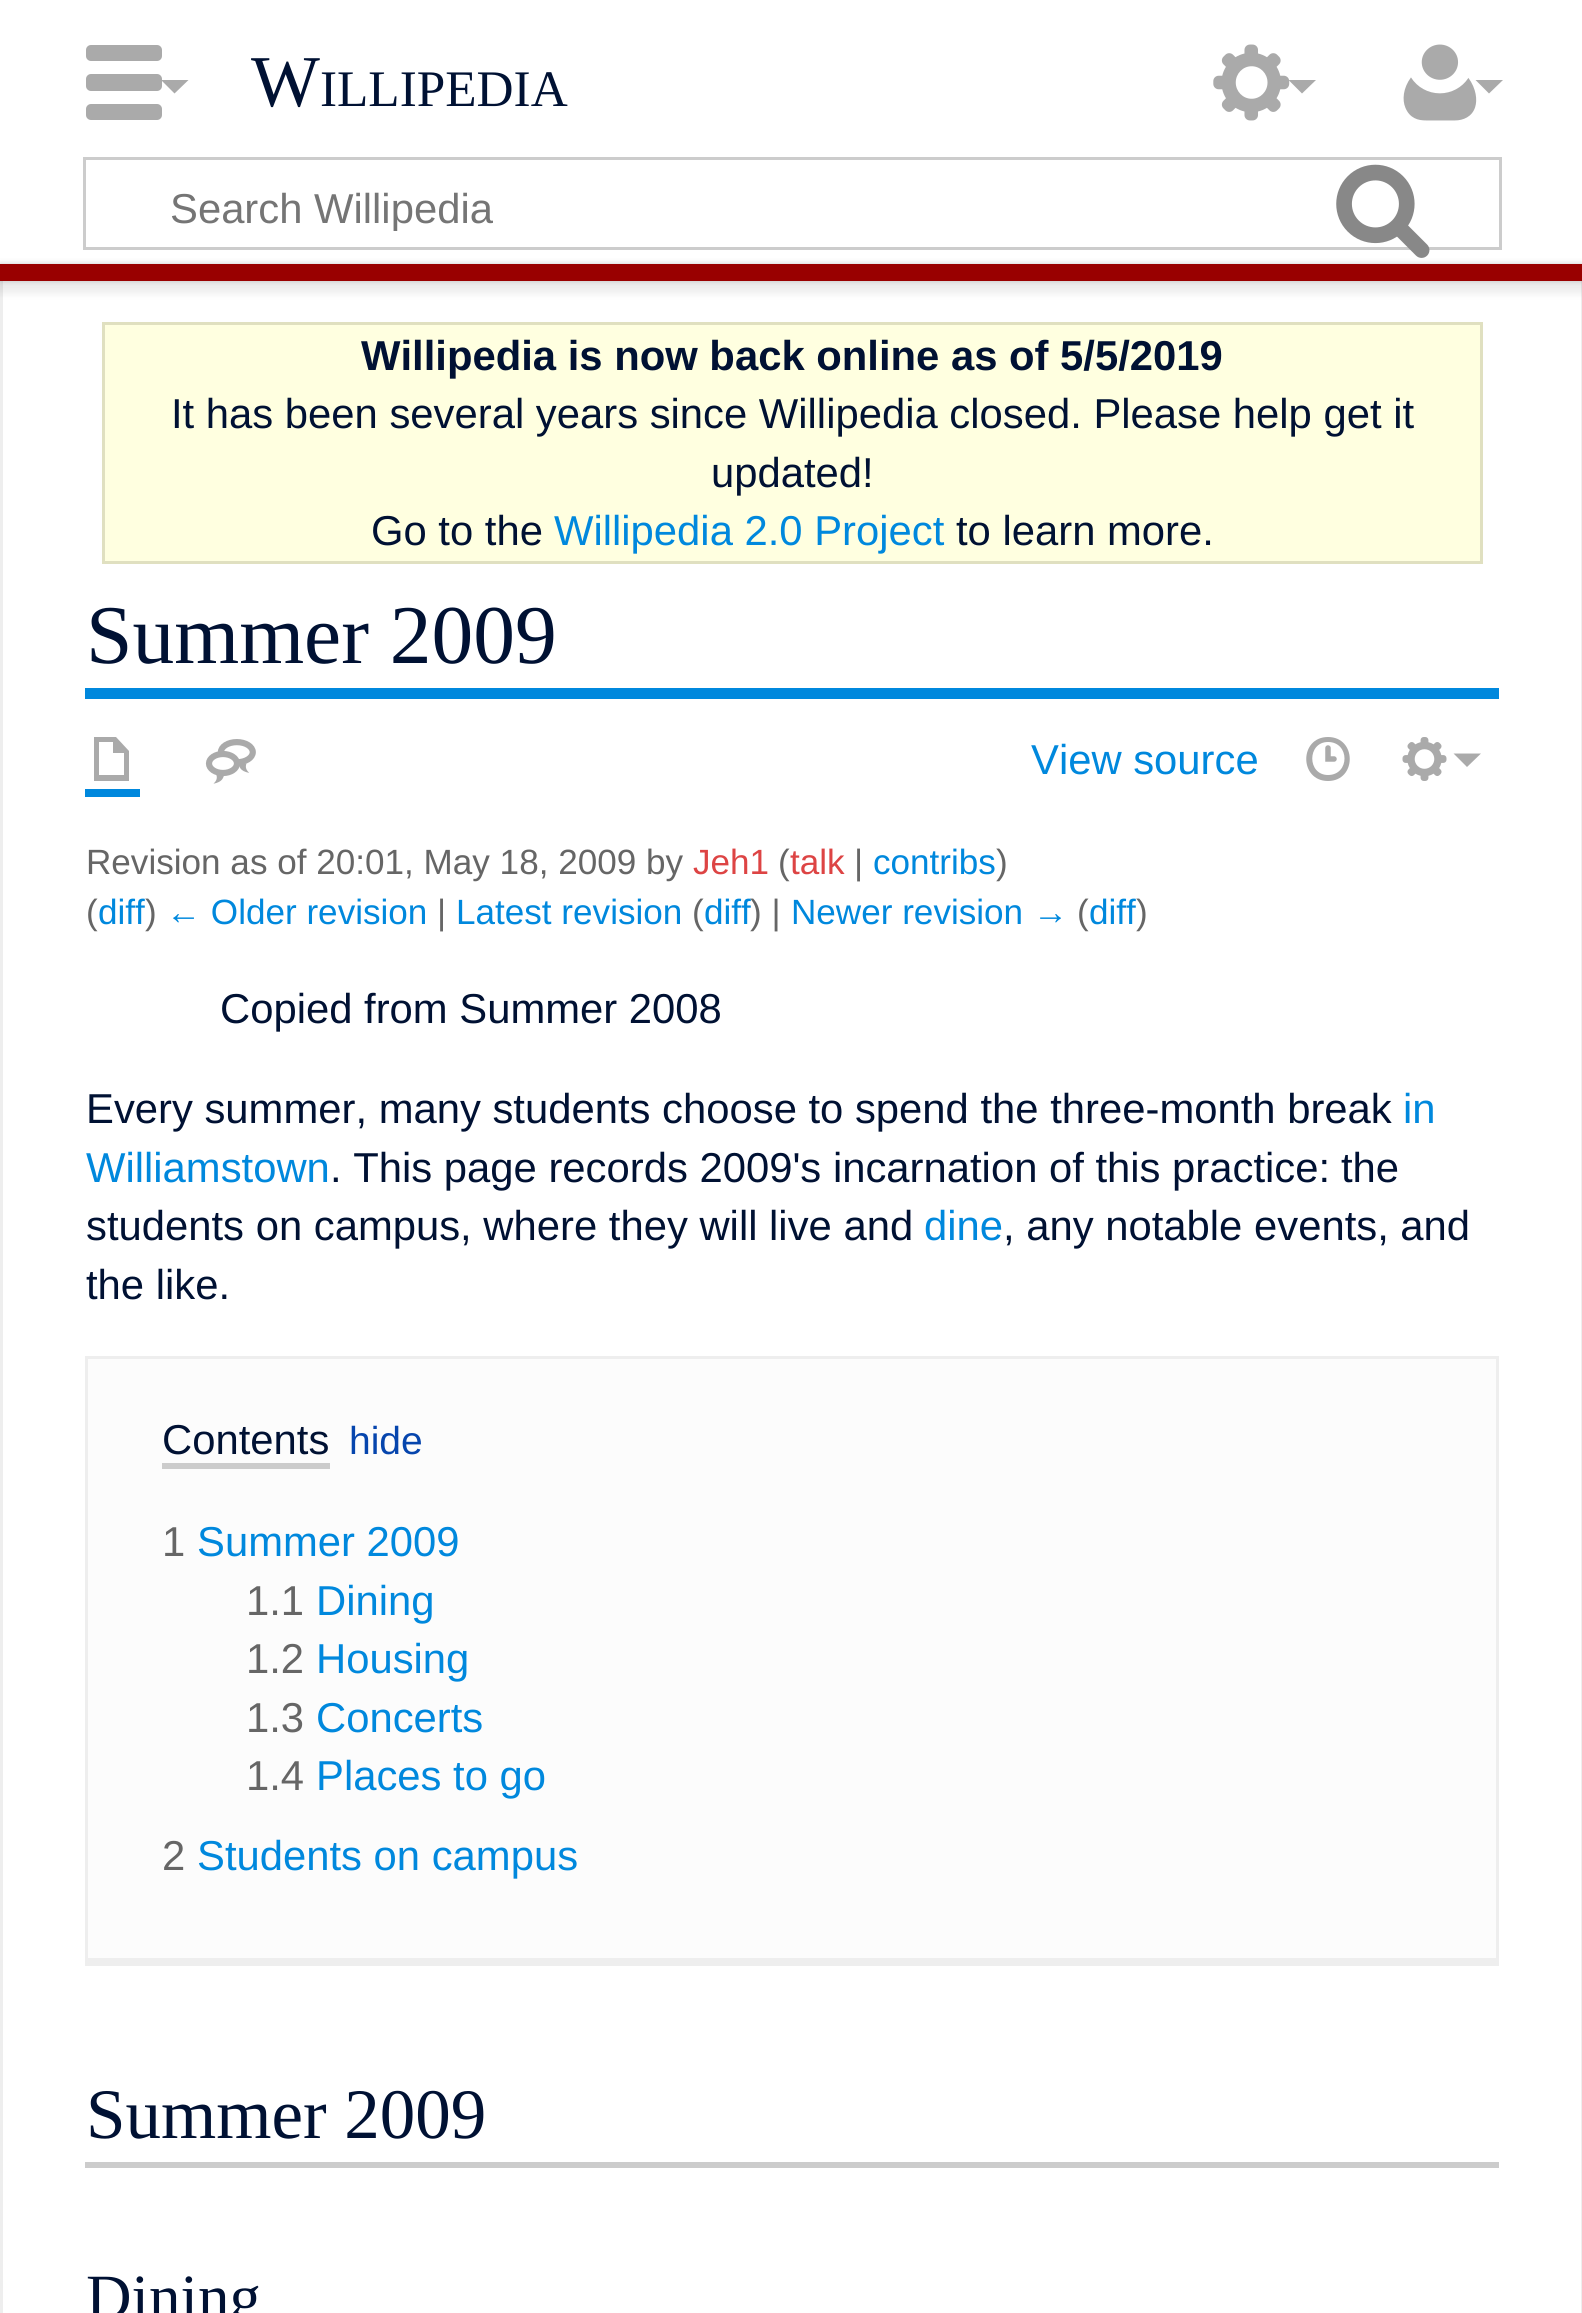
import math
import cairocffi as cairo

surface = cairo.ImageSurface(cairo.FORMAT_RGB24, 1582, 2313)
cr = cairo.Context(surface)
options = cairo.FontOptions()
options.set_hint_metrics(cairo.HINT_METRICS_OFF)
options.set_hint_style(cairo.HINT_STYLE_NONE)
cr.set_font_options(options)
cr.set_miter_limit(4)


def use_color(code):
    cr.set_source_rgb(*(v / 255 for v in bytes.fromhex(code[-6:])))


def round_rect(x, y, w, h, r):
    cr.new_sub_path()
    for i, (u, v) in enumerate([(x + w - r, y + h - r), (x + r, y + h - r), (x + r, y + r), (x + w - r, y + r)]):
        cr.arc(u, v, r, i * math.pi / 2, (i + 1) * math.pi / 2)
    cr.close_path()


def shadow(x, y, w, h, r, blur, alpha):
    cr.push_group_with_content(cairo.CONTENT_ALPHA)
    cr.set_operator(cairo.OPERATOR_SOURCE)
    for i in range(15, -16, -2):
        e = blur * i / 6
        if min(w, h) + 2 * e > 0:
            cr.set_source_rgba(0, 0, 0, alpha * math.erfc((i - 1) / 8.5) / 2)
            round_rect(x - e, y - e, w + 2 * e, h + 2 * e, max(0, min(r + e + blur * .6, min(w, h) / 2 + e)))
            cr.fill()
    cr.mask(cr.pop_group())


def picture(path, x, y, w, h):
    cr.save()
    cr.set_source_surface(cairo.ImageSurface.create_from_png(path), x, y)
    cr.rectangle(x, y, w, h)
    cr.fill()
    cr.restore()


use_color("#ffffff")
cr.paint()
cr.select_font_face("Liberation Serif")
cr.set_font_size(73)
use_color("#001133")
cr.move_to(251, 106)
cr.show_text("W")
cr.set_font_size(51.25)
cr.move_to(320, 106)
cr.show_text("ILLIPEDIA")
picture("img1.png", 1403, 44, 74, 77)
use_color("#aaaaaa")
cr.new_path()
cr.move_to(1503, 80)
cr.line_to(1489, 93.5)
cr.line_to(1475.5, 80)
cr.close_path()
cr.fill()
cr.rectangle(84.5, 158.5, 1416, 90)
use_color("#cccccc")
cr.set_line_width(3)
cr.stroke()
cr.save()
cr.rectangle(171, 184, 1127, 47)
cr.clip()
cr.select_font_face("Liberation Sans")
cr.set_font_size(41.8)
use_color("#757575")
cr.move_to(170, 223)
cr.show_text("Search Willipedia")
cr.restore()
picture("img2.png", 1336, 164, 94, 94)
use_color("#eeeeee")
cr.rectangle(1581, 281, 1, 2032)
cr.fill()
cr.rectangle(0, 281, 3, 2032)
cr.fill()
use_color("#000000")
shadow(0, 264, 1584, 17, 0, 3, 0.2)
shadow(-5, 267, 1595, 27, 0, 4, 0.07)
use_color("#990000")
cr.rectangle(0, 264, 1582, 17)
cr.fill()
use_color("#aaaaaa")
round_rect(86, 104, 76, 16, 5)
cr.fill()
round_rect(86, 74, 76, 17, 5)
cr.fill()
round_rect(86, 45, 76, 16, 5)
cr.fill()
cr.new_path()
cr.move_to(188.5, 80)
cr.line_to(174.5, 93.5)
cr.line_to(161, 80)
cr.close_path()
cr.fill()
picture("img3.png", 1213, 44, 77, 77)
cr.new_path()
cr.move_to(1316, 80)
cr.line_to(1302, 93.5)
cr.line_to(1288.5, 80)
cr.close_path()
cr.fill()
use_color("#ffffe0")
cr.rectangle(105, 325, 1375, 236)
cr.fill()
use_color("#e0e0c0")
cr.rectangle(102, 322, 1380, 3)
cr.fill()
cr.rectangle(1480, 322, 3, 242)
cr.fill()
cr.rectangle(102, 561, 1380, 3)
cr.fill()
cr.rectangle(102, 322, 3, 242)
cr.fill()
cr.select_font_face("Liberation Sans", cairo.FONT_SLANT_NORMAL, cairo.FONT_WEIGHT_BOLD)
cr.set_font_size(41.8)
use_color("#001133")
cr.move_to(361, 370)
cr.show_text("Willipedia is now back online as of 5/5/2019")
cr.select_font_face("Liberation Sans")
cr.move_to(171, 428)
cr.show_text("It has been several years since Willipedia closed. Please help get it")
cr.move_to(711, 487)
cr.show_text("updated!")
cr.move_to(371, 545)
cr.show_text("Go to the")
use_color("#0088dd")
cr.move_to(554, 545)
cr.show_text("Willipedia 2.0 Project")
use_color("#001133")
cr.move_to(956, 545)
cr.show_text("to learn more.")
use_color("#0088dd")
cr.rectangle(85, 688, 1414, 11)
cr.fill()
cr.select_font_face("Liberation Serif")
cr.set_font_size(83.5)
use_color("#001133")
cr.move_to(86, 663)
cr.show_text("Summer 2009")
use_color("#0088dd")
cr.rectangle(85, 789, 55, 8)
cr.fill()
use_color("#aaaaaa")
cr.set_fill_rule(cairo.FILL_RULE_EVEN_ODD)
cr.new_path()
cr.move_to(94, 737)
cr.line_to(94, 781)
cr.line_to(129, 781)
cr.line_to(129, 751)
cr.line_to(116, 737)
cr.close_path()
cr.move_to(99, 742)
cr.line_to(113, 742)
cr.line_to(113, 753)
cr.line_to(124, 753)
cr.line_to(124, 775)
cr.line_to(99, 775)
cr.close_path()
cr.fill()
picture("img4.png", 205, 739, 51, 45)
cr.select_font_face("Liberation Sans")
cr.set_font_size(41.8)
use_color("#0088dd")
cr.move_to(1031, 774)
cr.show_text("View source")
use_color("#aaaaaa")
cr.new_path()
cr.move_to(1328, 737)
cr.curve_to(1299, 737, 1299, 781, 1328, 781)
cr.curve_to(1357, 781, 1357, 737, 1328, 737)
cr.close_path()
cr.move_to(1328, 742)
cr.curve_to(1350, 742, 1350, 775, 1328, 775)
cr.curve_to(1307, 775, 1307, 742, 1328, 742)
cr.close_path()
cr.fill()
cr.new_path()
cr.move_to(1328, 748)
cr.line_to(1328, 759)
cr.line_to(1334, 759)
cr.set_line_width(5.5)
cr.set_line_cap(cairo.LINE_CAP_ROUND)
cr.stroke()
picture("img5.png", 1402, 737, 45, 44)
cr.set_fill_rule(cairo.FILL_RULE_WINDING)
cr.new_path()
cr.move_to(1481, 753.5)
cr.line_to(1467, 767)
cr.line_to(1453.5, 753.5)
cr.close_path()
cr.fill()
cr.set_font_size(35.1)
use_color("#666666")
cr.move_to(86, 874)
cr.show_text("Revision as of 20:01, May 18, 2009 by")
use_color("#dd4444")
cr.move_to(693, 874)
cr.show_text("Jeh1")
use_color("#666666")
cr.move_to(778, 874)
cr.show_text("(")
use_color("#dd4444")
cr.move_to(790, 874)
cr.show_text("talk")
use_color("#666666")
cr.move_to(854, 874)
cr.show_text("|")
use_color("#0088dd")
cr.move_to(873, 874)
cr.show_text("contribs")
use_color("#666666")
cr.move_to(996, 874)
cr.show_text(")")
cr.move_to(86, 924)
cr.show_text("(")
use_color("#0088dd")
cr.move_to(98, 924)
cr.show_text("diff")
use_color("#666666")
cr.move_to(145, 924)
cr.show_text(")")
use_color("#0088dd")
cr.move_to(166, 924)
cr.show_text("← Older revision")
use_color("#666666")
cr.move_to(437, 924)
cr.show_text("|")
use_color("#0088dd")
cr.move_to(456, 924)
cr.show_text("Latest revision")
use_color("#666666")
cr.move_to(692, 924)
cr.show_text("(")
use_color("#0088dd")
cr.move_to(704, 924)
cr.show_text("diff")
use_color("#666666")
cr.move_to(750, 924)
cr.show_text(") |")
use_color("#0088dd")
cr.move_to(791, 924)
cr.show_text("Newer revision →")
use_color("#666666")
cr.move_to(1077, 924)
cr.show_text("(")
use_color("#0088dd")
cr.move_to(1089, 924)
cr.show_text("diff")
use_color("#666666")
cr.move_to(1136, 924)
cr.show_text(")")
cr.set_font_size(41.8)
use_color("#001133")
cr.move_to(220, 1023)
cr.show_text("Copied from Summer 2008")
cr.move_to(86, 1123)
cr.show_text("Every summer, many students choose to spend the three-month break")
use_color("#0088dd")
cr.move_to(1403, 1123)
cr.show_text("in")
cr.move_to(86, 1182)
cr.show_text("Williamstown")
use_color("#001133")
cr.move_to(330, 1182)
cr.show_text(". This page records 2009's incarnation of this practice:")
cr.move_to(1341, 1182)
cr.show_text("the")
cr.move_to(86, 1240)
cr.show_text("students on campus, where they will live and")
use_color("#0088dd")
cr.move_to(924, 1240)
cr.show_text("dine")
use_color("#001133")
cr.move_to(1003, 1240)
cr.show_text(", any notable events, and")
cr.move_to(86, 1299)
cr.show_text("the like.")
use_color("#fcfcfc")
cr.rectangle(88, 1359, 1408, 599)
cr.fill()
use_color("#eeeeee")
cr.rectangle(85, 1356, 1414, 3)
cr.fill()
cr.rectangle(1496, 1356, 3, 610)
cr.fill()
cr.rectangle(85, 1958, 1414, 8)
cr.fill()
cr.rectangle(85, 1356, 3, 610)
cr.fill()
use_color("#001133")
cr.move_to(162, 1454)
cr.show_text("Contents")
use_color("#cccccc")
cr.rectangle(162, 1463, 168, 6)
cr.fill()
cr.set_font_size(39)
use_color("#0645ad")
cr.move_to(349, 1454)
cr.show_text("hide")
cr.set_font_size(41.8)
use_color("#666666")
cr.move_to(162, 1556)
cr.show_text("1")
use_color("#0088dd")
cr.move_to(197, 1556)
cr.show_text("Summer 2009")
use_color("#666666")
cr.move_to(246, 1615)
cr.show_text("1.1")
use_color("#0088dd")
cr.move_to(316, 1615)
cr.show_text("Dining")
use_color("#666666")
cr.move_to(246, 1673)
cr.show_text("1.2")
use_color("#0088dd")
cr.move_to(316, 1673)
cr.show_text("Housing")
use_color("#666666")
cr.move_to(246, 1732)
cr.show_text("1.3")
use_color("#0088dd")
cr.move_to(316, 1732)
cr.show_text("Concerts")
use_color("#666666")
cr.move_to(246, 1790)
cr.show_text("1.4")
use_color("#0088dd")
cr.move_to(316, 1790)
cr.show_text("Places to go")
use_color("#666666")
cr.move_to(162, 1870)
cr.show_text("2")
use_color("#0088dd")
cr.move_to(197, 1870)
cr.show_text("Students on campus")
use_color("#cccccc")
cr.rectangle(85, 2162, 1414, 6)
cr.fill()
cr.select_font_face("Liberation Serif")
cr.set_font_size(71)
use_color("#001133")
cr.move_to(86, 2138)
cr.show_text("Summer 2009")
cr.set_font_size(63)
cr.move_to(86, 2318)
cr.show_text("Dining")
surface.write_to_png("result.png")
